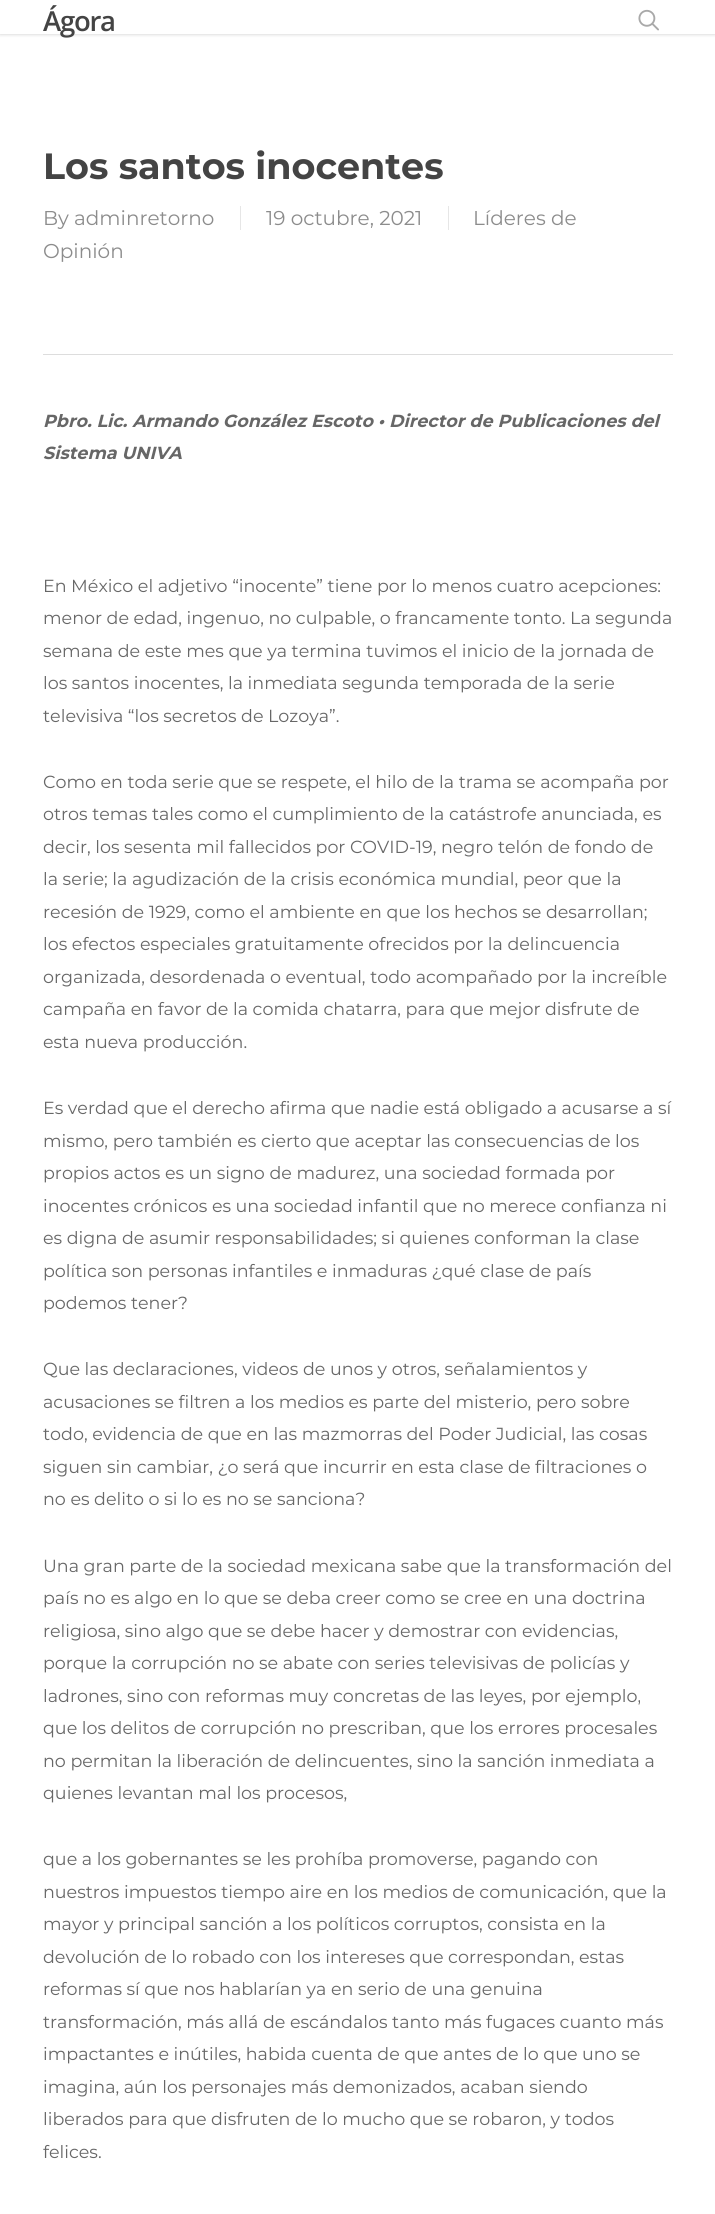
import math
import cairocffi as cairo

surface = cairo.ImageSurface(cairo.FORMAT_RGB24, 715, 2214)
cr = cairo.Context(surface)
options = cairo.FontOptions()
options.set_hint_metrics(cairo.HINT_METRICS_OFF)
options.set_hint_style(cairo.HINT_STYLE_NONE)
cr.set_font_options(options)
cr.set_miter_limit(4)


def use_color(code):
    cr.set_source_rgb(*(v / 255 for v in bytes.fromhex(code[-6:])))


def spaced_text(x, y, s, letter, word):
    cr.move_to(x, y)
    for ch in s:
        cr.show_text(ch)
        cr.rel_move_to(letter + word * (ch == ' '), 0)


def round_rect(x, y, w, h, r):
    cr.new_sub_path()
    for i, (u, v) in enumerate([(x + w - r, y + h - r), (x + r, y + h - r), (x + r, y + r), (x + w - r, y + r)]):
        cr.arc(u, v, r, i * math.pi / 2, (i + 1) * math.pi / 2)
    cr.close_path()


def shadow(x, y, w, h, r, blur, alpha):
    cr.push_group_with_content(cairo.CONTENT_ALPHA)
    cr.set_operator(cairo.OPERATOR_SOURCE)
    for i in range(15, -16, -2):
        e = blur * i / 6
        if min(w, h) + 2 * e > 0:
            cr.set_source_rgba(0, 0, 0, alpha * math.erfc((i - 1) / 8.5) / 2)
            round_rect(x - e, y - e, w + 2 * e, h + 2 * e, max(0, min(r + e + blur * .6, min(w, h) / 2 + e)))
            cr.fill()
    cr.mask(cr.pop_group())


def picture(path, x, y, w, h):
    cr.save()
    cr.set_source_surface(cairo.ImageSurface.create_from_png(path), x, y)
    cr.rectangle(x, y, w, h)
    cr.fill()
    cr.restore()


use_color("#ffffff")
cr.paint()
use_color("#000000")
shadow(0, 0, 715, 34, 0, 2, 0.22)
use_color("#ffffff")
cr.rectangle(0, 0, 715, 34)
cr.fill()
cr.select_font_face("Open Sans SemiBold")
cr.set_font_size(27.5)
use_color("#444444")
spaced_text(43, 31, "Ágora", -1.25, 0)
picture("img1.png", 638, 9, 21, 22)
use_color("#dddddd")
cr.rectangle(43, 354, 630, 1)
cr.fill()
cr.select_font_face("Montserrat", cairo.FONT_SLANT_NORMAL, cairo.FONT_WEIGHT_BOLD)
cr.set_font_size(36.5)
use_color("#444444")
cr.move_to(43, 179)
cr.show_text("Los santos inocentes")
cr.select_font_face("Montserrat")
cr.set_font_size(20)
use_color("#8c8c8c")
cr.move_to(43, 225)
cr.show_text("By")
cr.move_to(74, 225)
cr.show_text("adminretorno")
cr.move_to(266, 225)
cr.show_text("19 octubre, 2021")
use_color("#e6e6e6")
cr.rectangle(240, 206, 1, 24)
cr.fill()
use_color("#8c8c8c")
cr.move_to(473, 225)
cr.show_text("Líderes de")
use_color("#e6e6e6")
cr.rectangle(448, 206, 1, 24)
cr.fill()
use_color("#8c8c8c")
cr.move_to(43, 258)
cr.show_text("Opinión")
cr.select_font_face("Montserrat", cairo.FONT_SLANT_ITALIC, cairo.FONT_WEIGHT_BOLD)
cr.set_font_size(17.5)
use_color("#676767")
cr.move_to(43, 427)
cr.show_text("Pbro. Lic. Armando González Escoto • Director de Publicaciones del")
cr.move_to(43, 459)
cr.show_text("Sistema UNIVA")
cr.select_font_face("Montserrat")
cr.move_to(43, 592)
cr.show_text("En México el adjetivo “inocente” tiene por lo menos cuatro acepciones:")
cr.move_to(43, 624)
cr.show_text("menor de edad, ingenuo, no culpable, o francamente tonto. La segunda")
cr.move_to(43, 657)
cr.show_text("semana de este mes que ya termina tuvimos el inicio de la jornada de")
cr.move_to(43, 689)
cr.show_text("los santos inocentes, la inmediata segunda temporada de la serie")
cr.move_to(43, 722)
cr.show_text("televisiva “los secretos de Lozoya”.")
cr.move_to(43, 788)
cr.show_text("Como en toda serie que se respete, el hilo de la trama se acompaña por")
cr.move_to(43, 820)
cr.show_text("otros temas tales como el cumplimiento de la catástrofe anunciada, es")
cr.move_to(43, 853)
cr.show_text("decir, los sesenta mil fallecidos por COVID-19, negro telón de fondo de")
cr.move_to(43, 885)
cr.show_text("la serie; la agudización de la crisis económica mundial, peor que la")
cr.move_to(43, 918)
cr.show_text("recesión de 1929, como el ambiente en que los hechos se desarrollan;")
cr.move_to(43, 950)
cr.show_text("los efectos especiales gratuitamente ofrecidos por la delincuencia")
cr.move_to(43, 983)
cr.show_text("organizada, desordenada o eventual, todo acompañado por la increíble")
cr.move_to(43, 1015)
cr.show_text("campaña en favor de la comida chatarra, para que mejor disfrute de")
cr.move_to(43, 1048)
cr.show_text("esta nueva producción.")
cr.move_to(43, 1114)
cr.show_text("Es verdad que el derecho afirma que nadie está obligado a acusarse a sí")
cr.move_to(43, 1147)
cr.show_text("mismo, pero también es cierto que aceptar las consecuencias de los")
cr.move_to(43, 1179)
cr.show_text("propios actos es un signo de madurez, una sociedad formada por")
cr.move_to(43, 1212)
cr.show_text("inocentes crónicos es una sociedad infantil que no merece confianza ni")
cr.move_to(43, 1244)
cr.show_text("es digna de asumir responsabilidades; si quienes conforman la clase")
cr.move_to(43, 1277)
cr.show_text("política son personas infantiles e inmaduras ¿qué clase de país")
cr.move_to(43, 1309)
cr.show_text("podemos tener?")
cr.move_to(43, 1375)
cr.show_text("Que las declaraciones, videos de unos y otros, señalamientos y")
cr.move_to(43, 1408)
cr.show_text("acusaciones se filtren a los medios es parte del misterio, pero sobre")
cr.move_to(43, 1440)
cr.show_text("todo, evidencia de que en las mazmorras del Poder Judicial, las cosas")
cr.move_to(43, 1473)
cr.show_text("siguen sin cambiar, ¿o será que incurrir en esta clase de filtraciones o")
cr.move_to(43, 1505)
cr.show_text("no es delito o si lo es no se sanciona?")
cr.move_to(43, 1572)
cr.show_text("Una gran parte de la sociedad mexicana sabe que la transformación del")
cr.move_to(43, 1604)
cr.show_text("país no es algo en lo que se deba creer como se cree en una doctrina")
cr.move_to(43, 1637)
cr.show_text("religiosa, sino algo que se debe hacer y demostrar con evidencias,")
cr.move_to(43, 1669)
cr.show_text("porque la corrupción no se abate con series televisivas de policías y")
cr.move_to(43, 1702)
cr.show_text("ladrones, sino con reformas muy concretas de las leyes, por ejemplo,")
cr.move_to(43, 1734)
cr.show_text("que los delitos de corrupción no prescriban, que los errores procesales")
cr.move_to(43, 1767)
cr.show_text("no permitan la liberación de delincuentes, sino la sanción inmediata a")
cr.move_to(43, 1799)
cr.show_text("quienes levantan mal los procesos,")
cr.move_to(43, 1865)
cr.show_text("que a los gobernantes se les prohíba promoverse, pagando con")
cr.move_to(43, 1898)
cr.show_text("nuestros impuestos tiempo aire en los medios de comunicación, que la")
cr.move_to(43, 1930)
cr.show_text("mayor y principal sanción a los políticos corruptos, consista en la")
cr.move_to(43, 1963)
cr.show_text("devolución de lo robado con los intereses que correspondan, estas")
cr.move_to(43, 1995)
cr.show_text("reformas sí que nos hablarían ya en serio de una genuina")
cr.move_to(43, 2028)
cr.show_text("transformación, más allá de escándalos tanto más fugaces cuanto más")
cr.move_to(43, 2060)
cr.show_text("impactantes e inútiles, habida cuenta de que antes de lo que uno se")
cr.move_to(43, 2093)
cr.show_text("imagina, aún los personajes más demonizados, acaban siendo")
cr.move_to(43, 2125)
cr.show_text("liberados para que disfruten de lo mucho que se robaron, y todos")
cr.move_to(43, 2158)
cr.show_text("felices.")
surface.write_to_png("result.png")
